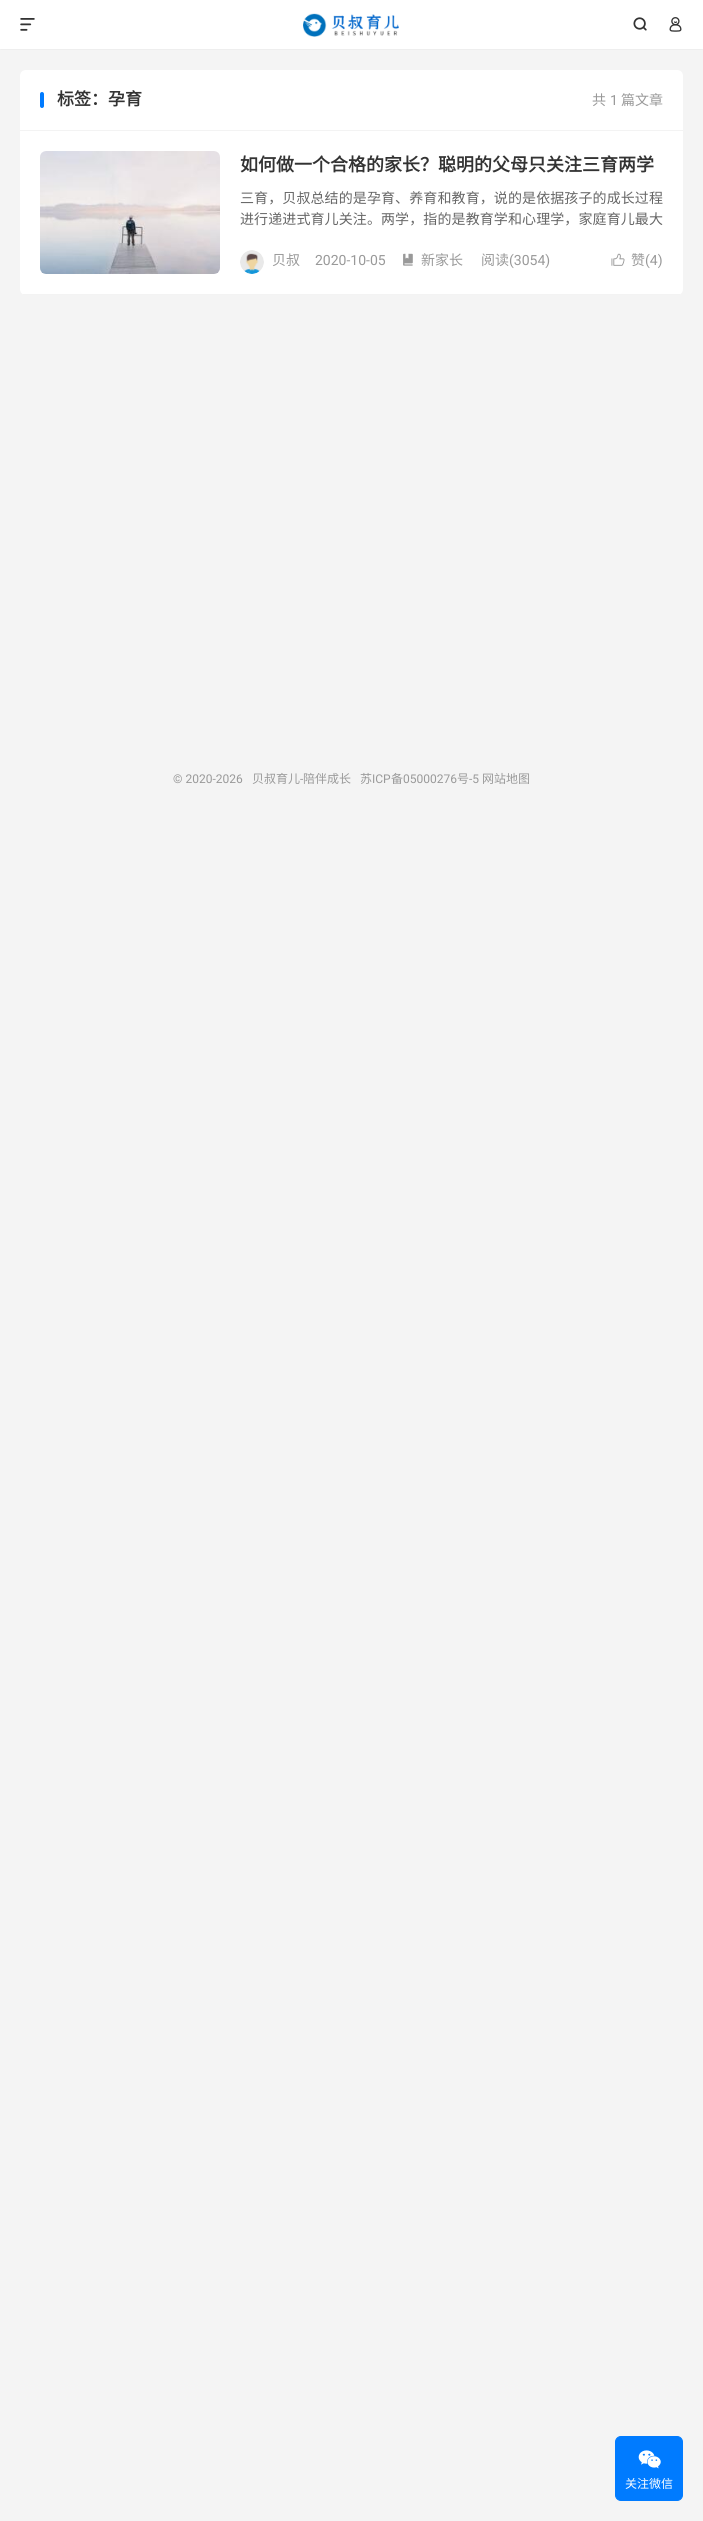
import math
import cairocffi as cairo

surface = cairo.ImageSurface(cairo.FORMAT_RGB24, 703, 2521)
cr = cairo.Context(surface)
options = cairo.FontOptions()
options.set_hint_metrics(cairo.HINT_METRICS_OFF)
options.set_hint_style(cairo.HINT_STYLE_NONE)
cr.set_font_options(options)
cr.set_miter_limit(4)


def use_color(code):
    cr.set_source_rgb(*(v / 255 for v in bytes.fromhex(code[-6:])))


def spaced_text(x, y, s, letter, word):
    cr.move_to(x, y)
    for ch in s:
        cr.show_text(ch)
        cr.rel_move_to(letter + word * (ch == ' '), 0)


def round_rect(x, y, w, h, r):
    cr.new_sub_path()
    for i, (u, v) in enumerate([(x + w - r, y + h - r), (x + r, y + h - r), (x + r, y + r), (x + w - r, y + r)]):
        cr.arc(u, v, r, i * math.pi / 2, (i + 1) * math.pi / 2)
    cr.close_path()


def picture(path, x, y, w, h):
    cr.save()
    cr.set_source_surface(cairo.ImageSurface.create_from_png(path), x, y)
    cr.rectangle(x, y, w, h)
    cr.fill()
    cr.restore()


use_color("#f4f4f4")
cr.paint()
use_color("#ffffff")
cr.rectangle(0, 0, 703, 50)
cr.fill()
picture("img1.png", 303, 13, 96, 24)
picture("img2.png", 633, 17, 14, 14)
picture("img3.png", 669, 17, 13, 15)
use_color("#eeeeee")
round_rect(0, 49, 703, 1, 0.5)
cr.fill()
picture("img4.png", 20, 18, 15, 13)
use_color("#ffffff")
cr.new_path()
cr.move_to(26, 70)
cr.line_to(677, 70)
cr.curve_to(680.5, 70, 683, 72.5, 683, 76)
cr.line_to(683, 131)
cr.line_to(20, 131)
cr.line_to(20, 76)
cr.curve_to(20, 72.5, 22.5, 70, 26, 70)
cr.close_path()
cr.fill()
use_color("#f3f3f3")
cr.rectangle(20, 130, 663, 1)
cr.fill()
use_color("#007bff")
round_rect(40, 92, 4, 16, 2)
cr.fill()
cr.select_font_face("Noto Sans CJK SC", cairo.FONT_SLANT_NORMAL, cairo.FONT_WEIGHT_BOLD)
cr.set_font_size(17)
use_color("#333333")
cr.move_to(57, 105)
cr.show_text("标签：孕育")
cr.select_font_face("Noto Sans CJK SC")
cr.set_font_size(14)
use_color("#999999")
cr.move_to(592, 105)
cr.show_text("共")
cr.select_font_face("Roboto")
cr.move_to(610, 105)
cr.show_text("1")
cr.select_font_face("Noto Sans CJK SC")
cr.move_to(621, 105)
cr.show_text("篇文章")
use_color("#ffffff")
cr.new_path()
cr.move_to(20, 131)
cr.line_to(683, 131)
cr.line_to(683, 289)
cr.curve_to(683, 292.5, 680.5, 295, 677, 295)
cr.line_to(26, 295)
cr.curve_to(22.5, 295, 20, 292.5, 20, 289)
cr.close_path()
cr.fill()
use_color("#f3f3f3")
cr.rectangle(23, 294, 657, 1)
cr.fill()
picture("img5.png", 40, 151, 180, 123)
cr.select_font_face("Noto Sans CJK SC", cairo.FONT_SLANT_NORMAL, cairo.FONT_WEIGHT_BOLD)
cr.set_font_size(18)
use_color("#333333")
cr.move_to(240, 171)
cr.show_text("如何做一个合格的家长？聪明的父母只关注三育两学")
cr.select_font_face("Noto Sans CJK SC")
cr.set_font_size(14)
use_color("#666666")
spaced_text(240, 203, "三育，贝叔总结的是孕育、养育和教育，说的是依据孩子的成长过程", 0.1, 0)
spaced_text(240, 224, "进行递进式育儿关注。两学，指的是教育学和心理学，家庭育儿最大", 0.1, 0)
picture("img6.png", 240, 250, 24, 24)
use_color("#999999")
cr.move_to(272, 265)
cr.show_text("贝叔")
cr.select_font_face("Roboto")
cr.move_to(315, 265)
cr.show_text("2020-10-05")
picture("img7.png", 403, 253, 10, 13)
cr.select_font_face("Noto Sans CJK SC")
cr.move_to(421, 265)
cr.show_text("新家长")
cr.move_to(481, 265)
cr.show_text("阅读")
cr.select_font_face("Roboto")
cr.move_to(509, 265)
cr.show_text("(3054)")
picture("img8.png", 611, 253, 14, 13)
cr.select_font_face("Noto Sans CJK SC")
cr.move_to(631, 265)
cr.show_text("赞")
cr.select_font_face("Roboto")
cr.move_to(645, 265)
cr.show_text("(4)")
cr.set_font_size(12)
cr.move_to(173, 783)
cr.show_text("© 2020-2026")
cr.select_font_face("Noto Sans CJK SC")
cr.move_to(252, 783)
cr.show_text("贝叔育儿")
cr.select_font_face("Roboto")
cr.move_to(300, 783)
cr.show_text("-")
cr.select_font_face("Noto Sans CJK SC")
cr.move_to(303, 783)
cr.show_text("陪伴成长")
cr.move_to(360, 783)
cr.show_text("苏")
cr.select_font_face("Roboto")
cr.move_to(372, 783)
cr.show_text("ICP")
cr.select_font_face("Noto Sans CJK SC")
cr.move_to(391, 783)
cr.show_text("备")
cr.select_font_face("Roboto")
cr.move_to(403, 783)
cr.show_text("05000276")
cr.select_font_face("Noto Sans CJK SC")
cr.move_to(457, 783)
cr.show_text("号")
cr.select_font_face("Roboto")
cr.move_to(469, 783)
cr.show_text("-5")
cr.select_font_face("Noto Sans CJK SC")
cr.move_to(482, 783)
cr.show_text("网站地图")
use_color("#007bff")
round_rect(615.5, 2436.5, 67, 64, 5.5)
cr.fill_preserve()
cr.set_line_width(1)
cr.stroke()
picture("img9.png", 638, 2450, 23, 19)
use_color("#ffffff")
cr.move_to(625, 2488)
cr.show_text("关注微信")
surface.write_to_png("result.png")
